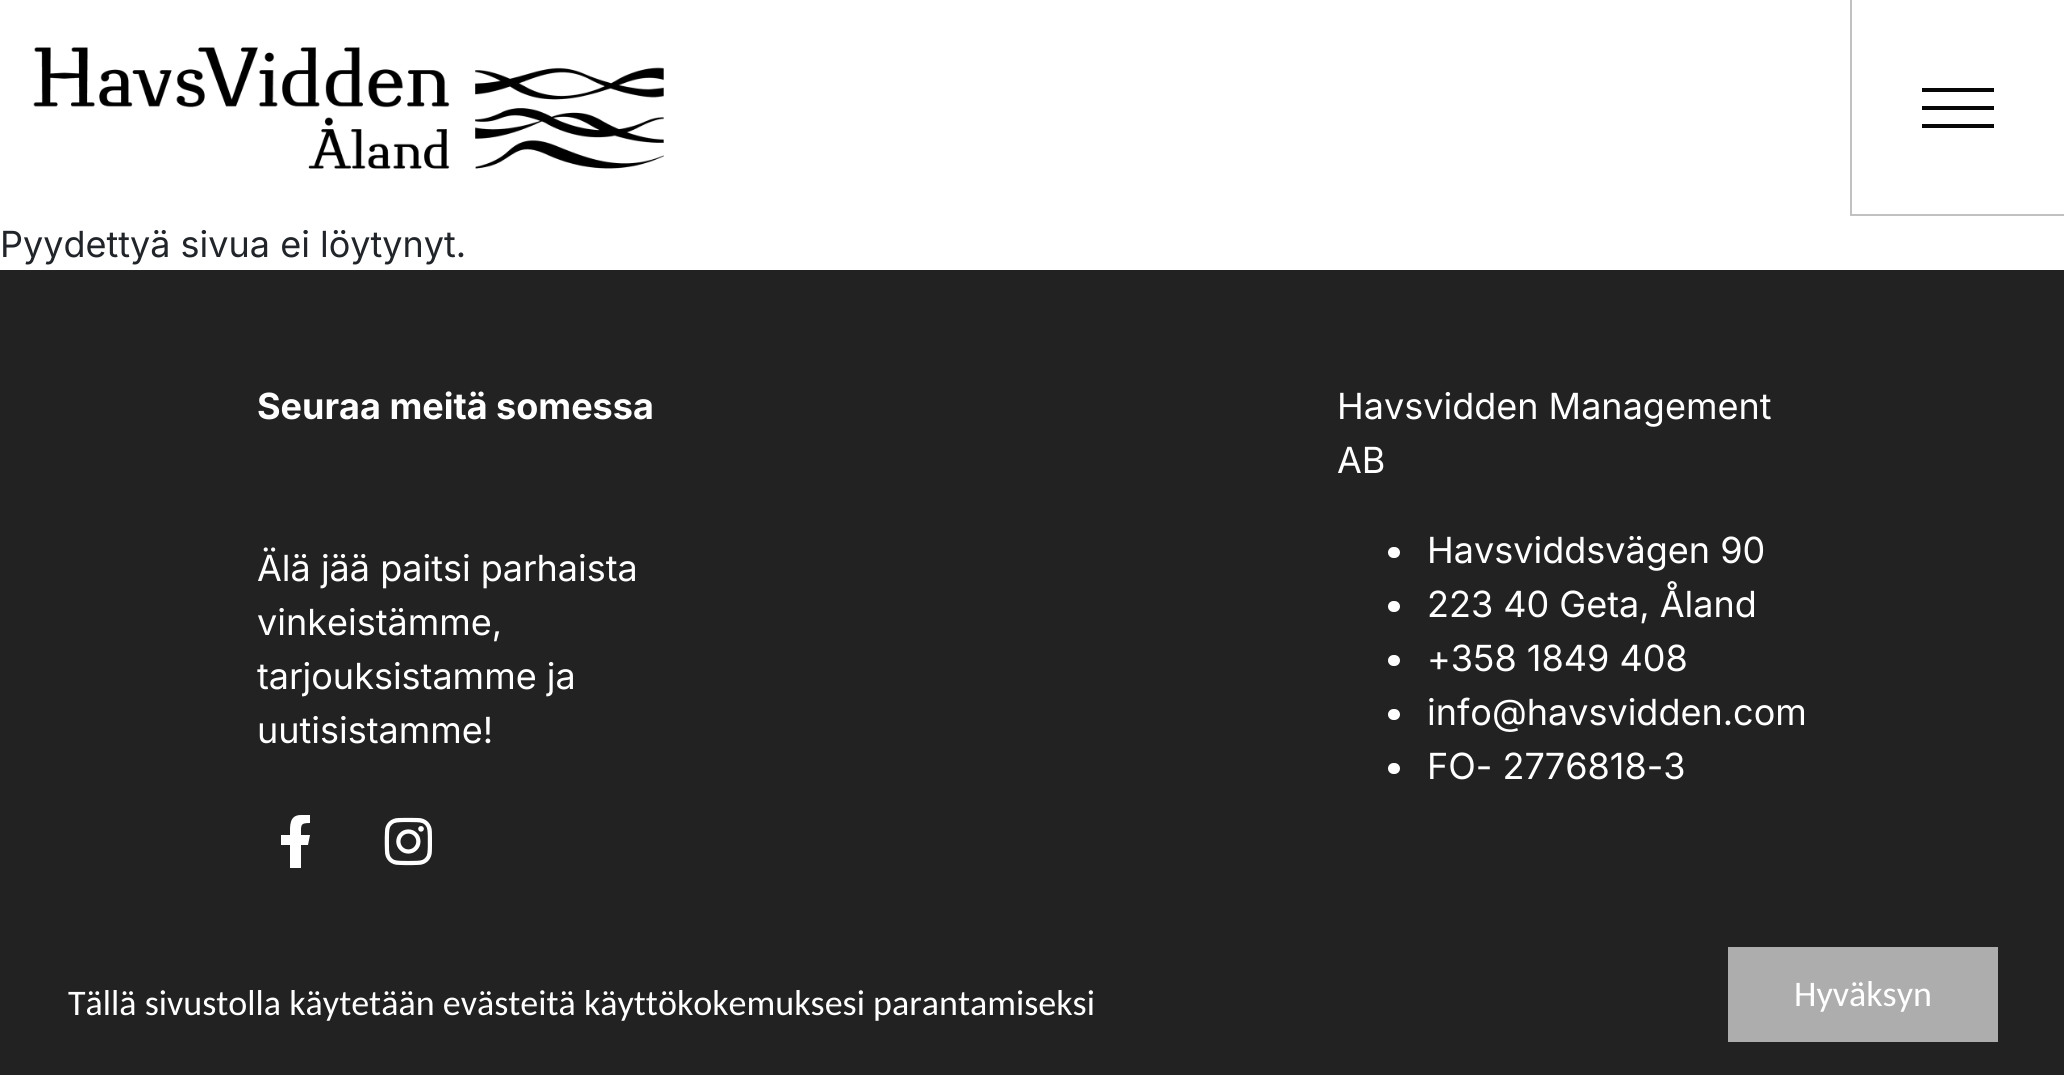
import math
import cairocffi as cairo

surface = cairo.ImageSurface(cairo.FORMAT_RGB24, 2064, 1075)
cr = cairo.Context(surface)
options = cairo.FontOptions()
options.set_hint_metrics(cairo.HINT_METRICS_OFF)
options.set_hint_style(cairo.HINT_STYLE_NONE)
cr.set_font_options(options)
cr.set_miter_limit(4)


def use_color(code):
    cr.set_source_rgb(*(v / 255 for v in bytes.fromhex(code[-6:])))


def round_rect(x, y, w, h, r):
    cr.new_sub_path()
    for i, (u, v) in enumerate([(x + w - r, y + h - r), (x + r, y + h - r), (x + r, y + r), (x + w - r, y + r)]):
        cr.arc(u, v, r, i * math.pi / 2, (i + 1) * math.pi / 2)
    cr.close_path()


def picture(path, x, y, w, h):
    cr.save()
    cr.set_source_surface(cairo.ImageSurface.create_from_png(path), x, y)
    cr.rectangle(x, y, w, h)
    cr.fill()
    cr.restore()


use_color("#ffffff")
cr.paint()
picture("img1.png", 33, 47, 631, 122)
use_color("#c1c1c1")
cr.rectangle(1850, 214, 214, 2)
cr.fill()
cr.rectangle(1850, 0, 2, 216)
cr.fill()
use_color("#080707")
cr.rectangle(1922, 88, 72, 4)
cr.fill()
cr.rectangle(1922, 106, 72, 4)
cr.fill()
cr.rectangle(1922, 124, 72, 4)
cr.fill()
cr.select_font_face("Inter")
cr.set_font_size(36)
use_color("#212529")
cr.move_to(0, 257)
cr.show_text("Pyydettyä sivua ei löytynyt.")
use_color("#222222")
cr.rectangle(0, 270, 2064, 805)
cr.fill()
cr.select_font_face("Inter", cairo.FONT_SLANT_NORMAL, cairo.FONT_WEIGHT_BOLD)
use_color("#ffffff")
cr.move_to(257, 419)
cr.show_text("Seuraa meitä somessa")
cr.select_font_face("Inter")
cr.move_to(257, 581)
cr.show_text("Älä jää paitsi parhaista")
cr.move_to(257, 635)
cr.show_text("vinkeistämme,")
cr.move_to(257, 689)
cr.show_text("tarjouksistamme ja")
cr.move_to(257, 743)
cr.show_text("uutisistamme!")
cr.new_path()
cr.move_to(308, 845)
cr.line_to(310, 835)
cr.line_to(301, 835)
cr.curve_to(301, 825, 300, 823, 310, 823)
cr.line_to(310, 815)
cr.line_to(301, 815)
cr.curve_to(289, 815, 290, 826, 290, 835)
cr.line_to(281, 835)
cr.line_to(281, 845)
cr.line_to(290, 845)
cr.line_to(290, 868)
cr.line_to(301, 868)
cr.line_to(301, 845)
cr.close_path()
cr.fill()
picture("img2.png", 384, 817, 48, 49)
cr.move_to(1337, 419)
cr.show_text("Havsvidden Management")
cr.move_to(1337, 473)
cr.show_text("AB")
round_rect(1388, 547, 12, 11, 5.5)
cr.fill()
cr.move_to(1427, 563)
cr.show_text("Havsviddsvägen 90")
round_rect(1388, 601, 12, 11, 5.5)
cr.fill()
cr.move_to(1427, 617)
cr.show_text("223 40 Geta, Åland")
round_rect(1388, 655, 12, 11, 5.5)
cr.fill()
cr.move_to(1427, 671)
cr.show_text("+358 1849 408")
round_rect(1388, 709, 12, 11, 5.5)
cr.fill()
cr.move_to(1427, 725)
cr.show_text("info@havsvidden.com")
round_rect(1388, 763, 12, 11, 5.5)
cr.fill()
cr.move_to(1427, 779)
cr.show_text("FO- 2776818-3")
cr.select_font_face("Carlito")
cr.move_to(68, 1015)
cr.show_text("Tällä sivustolla käytetään evästeitä käyttökokemuksesi parantamiseksi")
use_color("#adadad")
cr.rectangle(1728, 947, 270, 95)
cr.fill()
use_color("#ffffff")
cr.move_to(1794, 1006)
cr.show_text("Hyväksyn")
surface.write_to_png("result.png")
